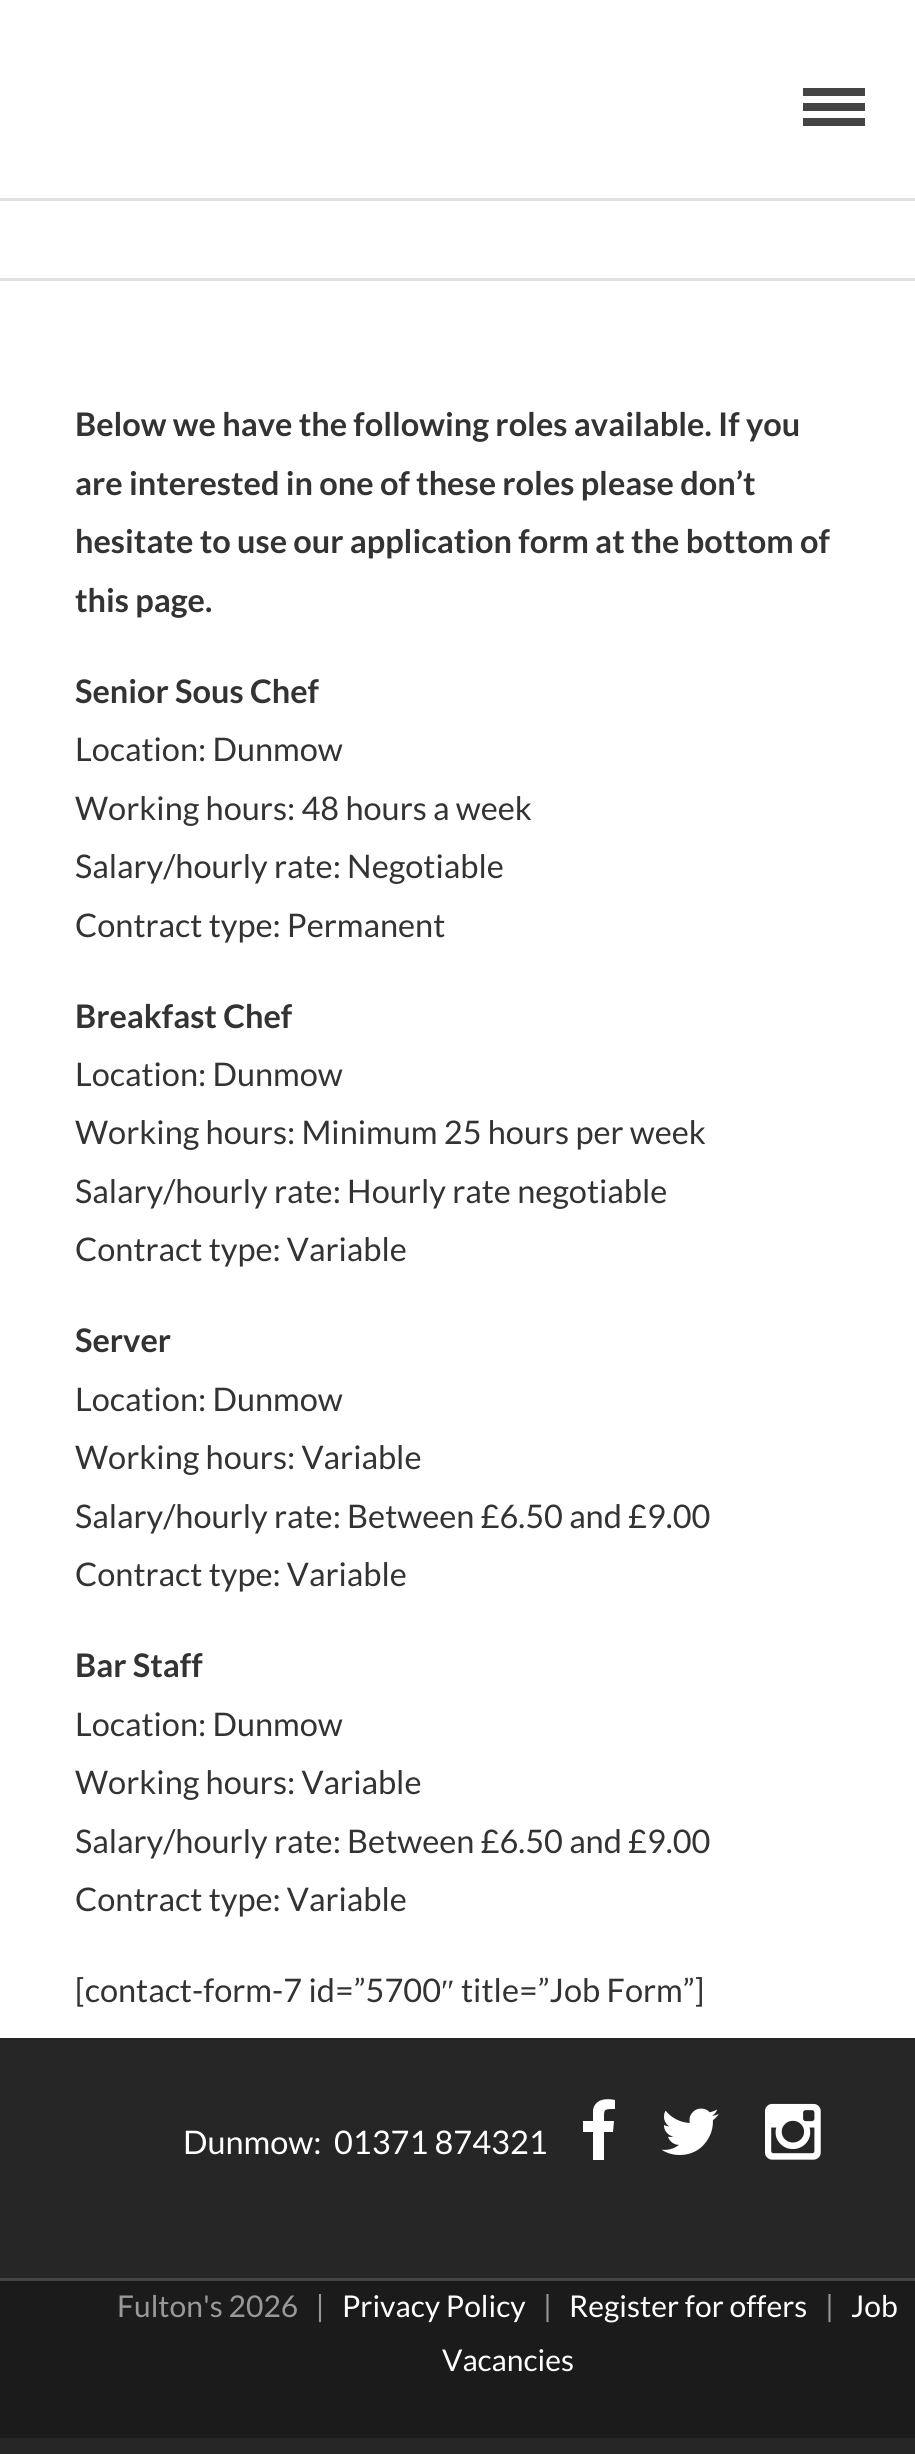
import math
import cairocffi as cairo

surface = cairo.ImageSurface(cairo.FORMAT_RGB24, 915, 2454)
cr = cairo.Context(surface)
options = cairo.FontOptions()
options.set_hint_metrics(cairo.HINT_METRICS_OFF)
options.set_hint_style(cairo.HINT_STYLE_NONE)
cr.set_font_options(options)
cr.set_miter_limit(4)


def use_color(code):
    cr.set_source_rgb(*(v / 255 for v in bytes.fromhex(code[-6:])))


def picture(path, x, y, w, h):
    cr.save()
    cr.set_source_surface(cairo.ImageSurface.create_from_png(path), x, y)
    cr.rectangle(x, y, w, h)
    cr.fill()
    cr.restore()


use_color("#ffffff")
cr.paint()
use_color("#e1e1e1")
cr.rectangle(0, 198, 915, 3)
cr.fill()
use_color("#444444")
cr.rectangle(803, 88, 62, 8)
cr.fill()
cr.rectangle(803, 103, 62, 8)
cr.fill()
cr.rectangle(803, 118, 62, 8)
cr.fill()
use_color("#e1e1e1")
cr.rectangle(0, 278, 915, 3)
cr.fill()
cr.select_font_face("Lato", cairo.FONT_SLANT_NORMAL, cairo.FONT_WEIGHT_BOLD)
cr.set_font_size(32.5)
use_color("#333333")
cr.move_to(75, 436)
cr.show_text("Below we have the following roles available. If you")
cr.move_to(75, 495)
cr.show_text("are interested in one of these roles please don’t")
cr.move_to(75, 553)
cr.show_text("hesitate to use our application form at the bottom of")
cr.move_to(75, 612)
cr.show_text("this page.")
cr.move_to(75, 703)
cr.show_text("Senior Sous Chef")
cr.select_font_face("Lato")
cr.move_to(75, 761)
cr.show_text("Location: Dunmow")
cr.move_to(75, 820)
cr.show_text("Working hours: 48 hours a week")
cr.move_to(75, 878)
cr.show_text("Salary/hourly rate: Negotiable")
cr.move_to(75, 937)
cr.show_text("Contract type: Permanent")
cr.select_font_face("Lato", cairo.FONT_SLANT_NORMAL, cairo.FONT_WEIGHT_BOLD)
cr.move_to(75, 1028)
cr.show_text("Breakfast Chef")
cr.select_font_face("Lato")
cr.move_to(75, 1086)
cr.show_text("Location: Dunmow")
cr.move_to(75, 1144)
cr.show_text("Working hours: Minimum 25 hours per week")
cr.move_to(75, 1203)
cr.show_text("Salary/hourly rate: Hourly rate negotiable")
cr.move_to(75, 1261)
cr.show_text("Contract type: Variable")
cr.select_font_face("Lato", cairo.FONT_SLANT_NORMAL, cairo.FONT_WEIGHT_BOLD)
cr.move_to(75, 1352)
cr.show_text("Server")
cr.select_font_face("Lato")
cr.move_to(75, 1411)
cr.show_text("Location: Dunmow")
cr.move_to(75, 1469)
cr.show_text("Working hours: Variable")
cr.move_to(75, 1528)
cr.show_text("Salary/hourly rate: Between £6.50 and £9.00")
cr.move_to(75, 1586)
cr.show_text("Contract type: Variable")
cr.select_font_face("Lato", cairo.FONT_SLANT_NORMAL, cairo.FONT_WEIGHT_BOLD)
cr.move_to(75, 1677)
cr.show_text("Bar Staff")
cr.select_font_face("Lato")
cr.move_to(75, 1736)
cr.show_text("Location: Dunmow")
cr.move_to(75, 1794)
cr.show_text("Working hours: Variable")
cr.move_to(75, 1853)
cr.show_text("Salary/hourly rate: Between £6.50 and £9.00")
cr.move_to(75, 1911)
cr.show_text("Contract type: Variable")
cr.move_to(75, 2002)
cr.show_text("[contact-form-7 id=”5700")
cr.select_font_face("Liberation Serif")
cr.move_to(441, 2002)
cr.show_text("″")
cr.select_font_face("Lato")
cr.move_to(461, 2002)
cr.show_text("title=”Job Form”]")
use_color("#262626")
cr.rectangle(0, 2038, 915, 416)
cr.fill()
use_color("#ffffff")
cr.move_to(183, 2154)
cr.show_text("Dunmow:")
cr.move_to(334, 2154)
cr.show_text("01371 874321")
cr.new_path()
cr.move_to(615, 2100)
cr.line_to(615, 2109)
cr.curve_to(603, 2109, 604, 2109, 604, 2121)
cr.line_to(614, 2121)
cr.line_to(613, 2132)
cr.line_to(604, 2132)
cr.line_to(604, 2160)
cr.line_to(593, 2160)
cr.line_to(593, 2132)
cr.line_to(583, 2132)
cr.line_to(583, 2121)
cr.line_to(593, 2121)
cr.line_to(593, 2110)
cr.curve_to(595, 2099, 606, 2098, 615, 2100)
cr.close_path()
cr.fill()
picture("img1.png", 661, 2108, 58, 47)
picture("img2.png", 765, 2103, 56, 57)
use_color("#1b1b1b")
cr.rectangle(0, 2281, 915, 157)
cr.fill()
use_color("#444444")
cr.rectangle(0, 2278, 915, 3)
cr.fill()
cr.set_font_size(30)
use_color("#999999")
cr.move_to(117, 2317)
cr.show_text("Fulton's 2026   |")
use_color("#ffffff")
cr.move_to(342, 2317)
cr.show_text("Privacy Policy")
use_color("#999999")
cr.move_to(543, 2317)
cr.show_text("|")
use_color("#ffffff")
cr.move_to(569, 2317)
cr.show_text("Register for offers")
use_color("#999999")
cr.move_to(825, 2317)
cr.show_text("|")
use_color("#ffffff")
cr.move_to(851, 2317)
cr.show_text("Job")
cr.move_to(442, 2371)
cr.show_text("Vacancies")
surface.write_to_png("result.png")
